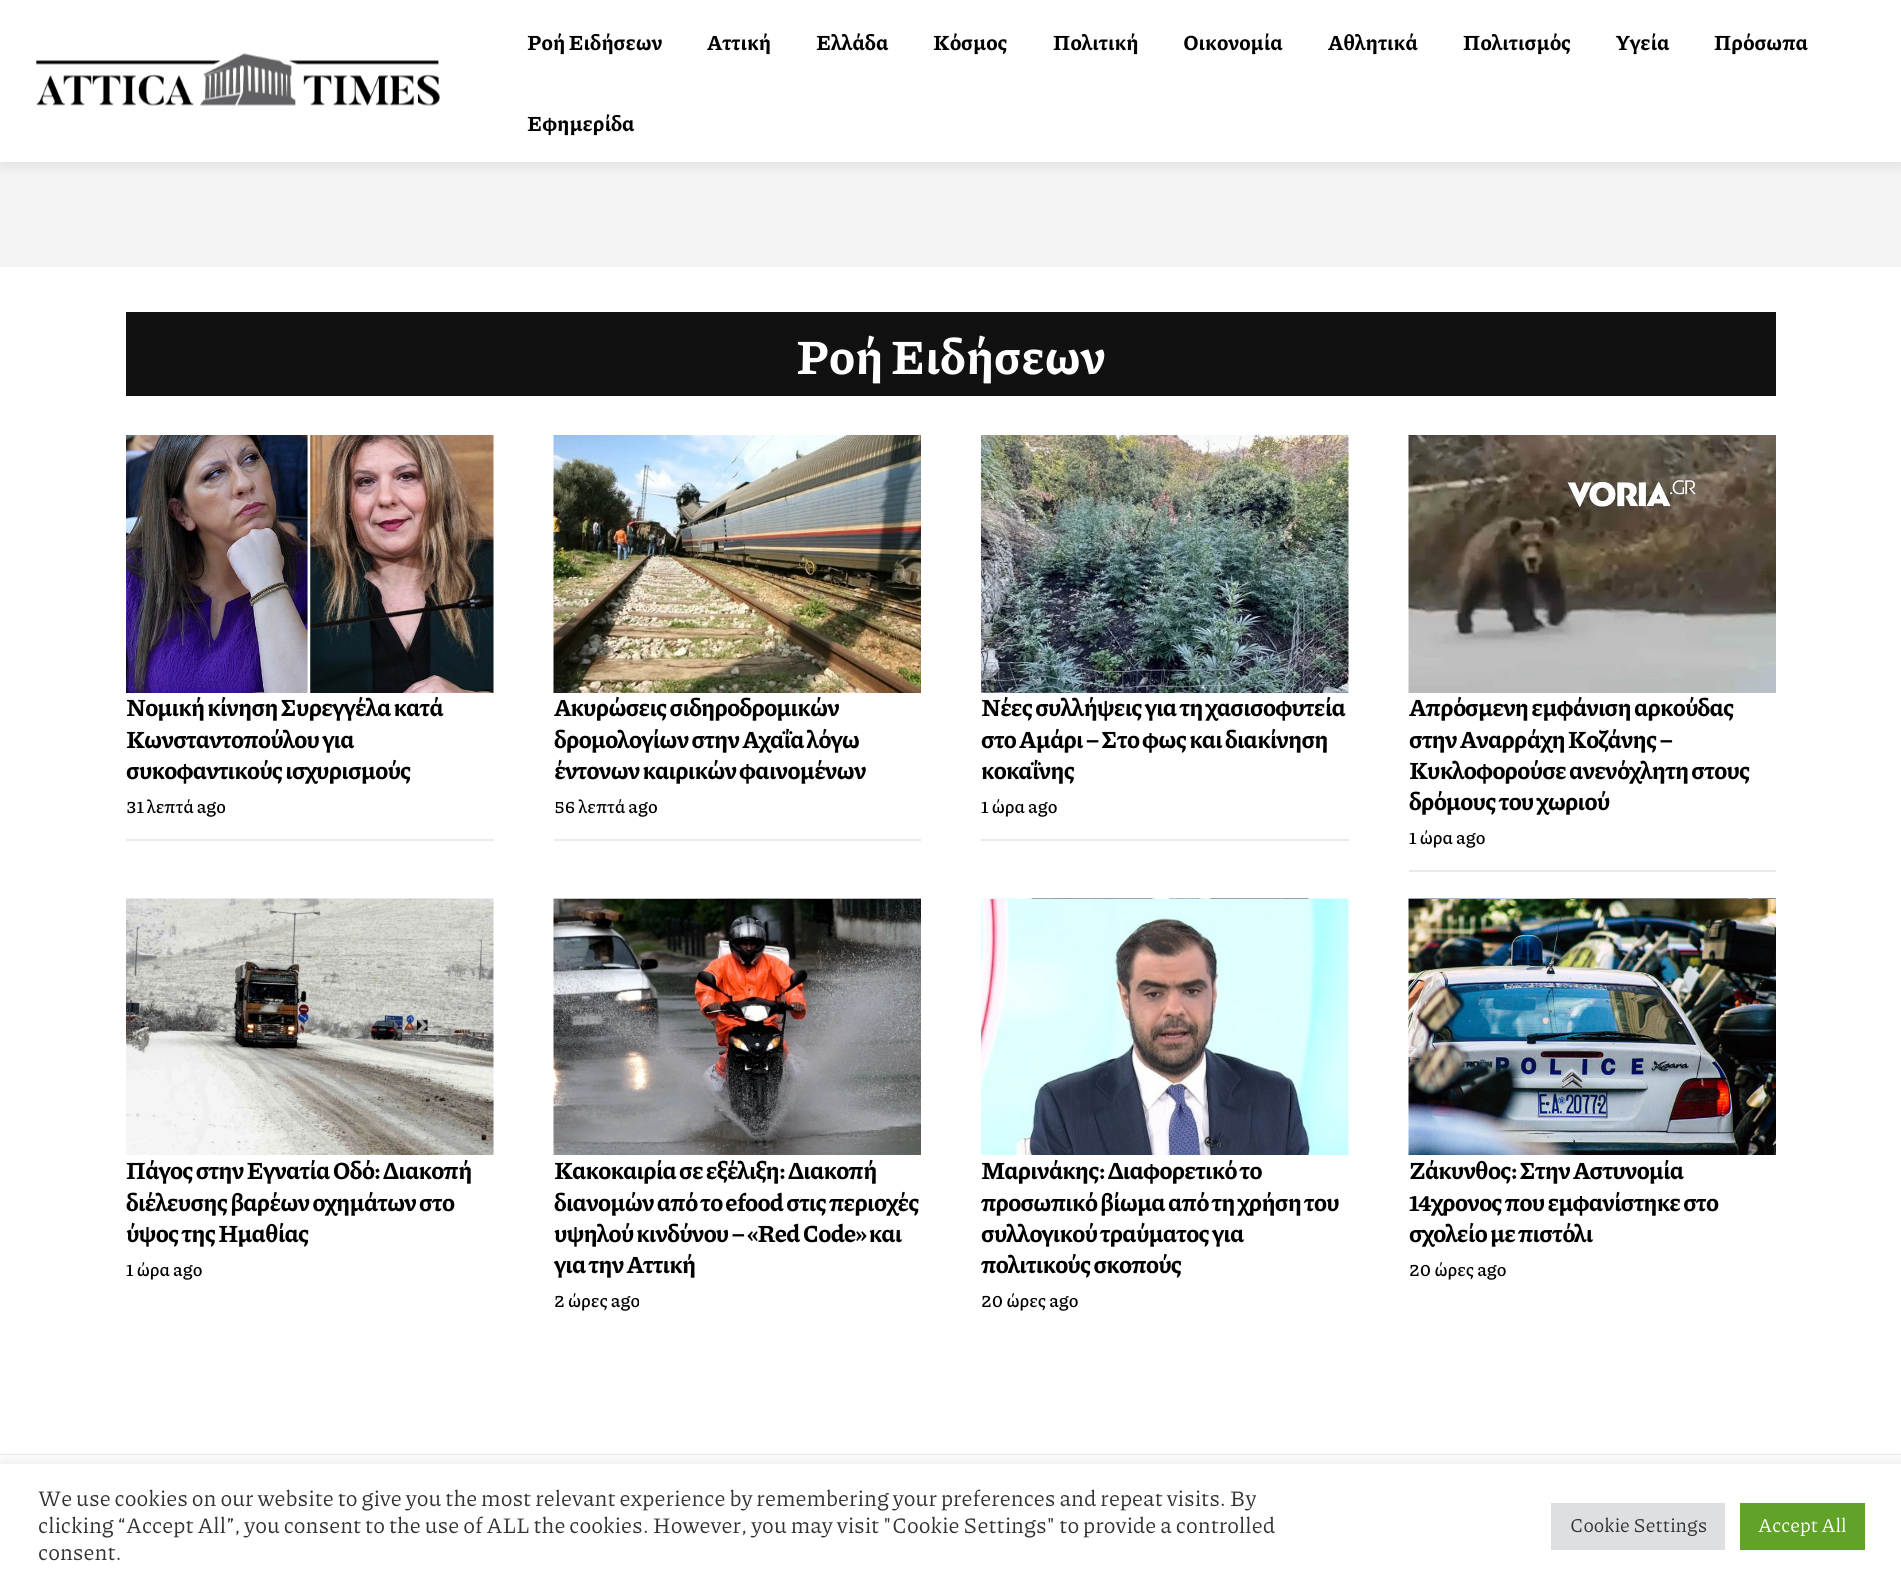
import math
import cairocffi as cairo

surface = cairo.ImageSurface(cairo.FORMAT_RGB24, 1901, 1587)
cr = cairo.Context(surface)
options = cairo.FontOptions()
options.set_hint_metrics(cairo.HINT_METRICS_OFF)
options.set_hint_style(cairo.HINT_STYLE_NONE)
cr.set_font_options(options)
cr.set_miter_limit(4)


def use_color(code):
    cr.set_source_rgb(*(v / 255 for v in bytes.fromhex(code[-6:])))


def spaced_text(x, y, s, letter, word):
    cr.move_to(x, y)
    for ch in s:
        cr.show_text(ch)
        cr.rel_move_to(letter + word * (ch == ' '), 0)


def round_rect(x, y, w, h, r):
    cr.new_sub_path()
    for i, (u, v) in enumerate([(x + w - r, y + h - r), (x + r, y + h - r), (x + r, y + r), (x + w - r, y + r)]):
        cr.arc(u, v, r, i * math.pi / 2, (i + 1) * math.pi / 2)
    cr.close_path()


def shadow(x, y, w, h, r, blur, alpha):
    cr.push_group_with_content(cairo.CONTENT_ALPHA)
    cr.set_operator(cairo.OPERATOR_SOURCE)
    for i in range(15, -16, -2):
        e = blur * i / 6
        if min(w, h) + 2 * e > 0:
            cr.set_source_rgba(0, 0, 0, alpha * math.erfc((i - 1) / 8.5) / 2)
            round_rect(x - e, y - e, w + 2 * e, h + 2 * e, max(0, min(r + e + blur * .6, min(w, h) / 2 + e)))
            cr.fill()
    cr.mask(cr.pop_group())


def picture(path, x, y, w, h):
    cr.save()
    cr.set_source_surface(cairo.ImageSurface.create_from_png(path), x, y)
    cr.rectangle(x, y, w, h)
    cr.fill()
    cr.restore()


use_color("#ffffff")
cr.paint()
picture("img1.png", 36, 53, 404, 53)
use_color("#f4f4f4")
cr.rectangle(0, 162, 1901, 105)
cr.fill()
cr.save()
cr.rectangle(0, 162, 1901, 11)
cr.clip()
use_color("#000000")
shadow(0, 0, 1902, 162, 0, 11, 0.12)
cr.restore()
cr.select_font_face("Piazzolla ExtraBold")
cr.set_font_size(21)
use_color("#000000")
cr.move_to(527, 50)
cr.show_text("Ροή Ειδήσεων")
cr.move_to(707, 50)
cr.show_text("Αττική")
cr.move_to(816, 50)
cr.show_text("Ελλάδα")
cr.move_to(933, 50)
cr.show_text("Κόσμος")
cr.move_to(1053, 50)
cr.show_text("Πολιτική")
cr.move_to(1183, 50)
cr.show_text("Οικονομία")
cr.move_to(1328, 50)
cr.show_text("Αθλητικά")
cr.move_to(1463, 50)
cr.show_text("Πολιτισμός")
cr.move_to(1616, 50)
cr.show_text("Υγεία")
cr.move_to(1714, 50)
cr.show_text("Πρόσωπα")
cr.move_to(527, 131)
cr.show_text("Εφημερίδα")
use_color("#111111")
cr.rectangle(126, 312, 1650, 84)
cr.fill()
cr.set_font_size(48)
use_color("#ffffff")
cr.move_to(796, 374)
cr.show_text("Ροή Ειδήσεων")
picture("img2.png", 126, 435, 368, 258)
cr.set_font_size(24)
use_color("#000000")
spaced_text(126, 716, "Νομική κίνηση Συρεγγέλα κατά", -0.75, 0)
spaced_text(126, 748, "Κωνσταντοπούλου για", -0.75, 0)
spaced_text(126, 779, "συκοφαντικούς ισχυρισμούς", -0.75, 0)
cr.select_font_face("Piazzolla SemiBold")
cr.set_font_size(18)
cr.move_to(126, 813)
cr.show_text("31 λεπτά ago")
use_color("#eaeaea")
cr.rectangle(126, 839, 368, 2)
cr.fill()
picture("img3.png", 553, 435, 368, 258)
cr.select_font_face("Piazzolla ExtraBold")
cr.set_font_size(24)
use_color("#000000")
spaced_text(554, 716, "Ακυρώσεις σιδηροδρομικών", -0.75, 0)
spaced_text(554, 748, "δρομολογίων στην Αχαΐα λόγω", -0.75, 0)
spaced_text(554, 779, "έντονων καιρικών φαινομένων", -0.75, 0)
cr.select_font_face("Piazzolla SemiBold")
cr.set_font_size(18)
cr.move_to(554, 813)
cr.show_text("56 λεπτά ago")
use_color("#eaeaea")
cr.rectangle(554, 839, 367, 2)
cr.fill()
picture("img4.png", 981, 435, 368, 258)
cr.select_font_face("Piazzolla ExtraBold")
cr.set_font_size(24)
use_color("#000000")
spaced_text(981, 716, "Νέες συλλήψεις για τη χασισοφυτεία", -0.75, 0)
spaced_text(981, 748, "στο Αμάρι – Στο φως και διακίνηση", -0.75, 0)
spaced_text(981, 779, "κοκαΐνης", -0.75, 0)
cr.select_font_face("Piazzolla SemiBold")
cr.set_font_size(18)
cr.move_to(981, 813)
cr.show_text("1 ώρα ago")
use_color("#eaeaea")
cr.rectangle(981, 839, 368, 2)
cr.fill()
picture("img5.png", 1408, 435, 368, 258)
cr.select_font_face("Piazzolla ExtraBold")
cr.set_font_size(24)
use_color("#000000")
spaced_text(1409, 716, "Απρόσμενη εμφάνιση αρκούδας", -0.75, 0)
spaced_text(1409, 748, "στην Αναρράχη Κοζάνης –", -0.75, 0)
spaced_text(1409, 779, "Κυκλοφορούσε ανενόχλητη στους", -0.75, 0)
spaced_text(1409, 810, "δρόμους του χωριού", -0.75, 0)
cr.select_font_face("Piazzolla SemiBold")
cr.set_font_size(18)
cr.move_to(1409, 844)
cr.show_text("1 ώρα ago")
use_color("#eaeaea")
cr.rectangle(1409, 870, 367, 2)
cr.fill()
picture("img6.png", 126, 898, 368, 257)
cr.select_font_face("Piazzolla ExtraBold")
cr.set_font_size(24)
use_color("#000000")
spaced_text(126, 1179, "Πάγος στην Εγνατία Οδό: Διακοπή", -0.75, 0)
spaced_text(126, 1211, "διέλευσης βαρέων οχημάτων στο", -0.75, 0)
spaced_text(126, 1242, "ύψος της Ημαθίας", -0.75, 0)
cr.select_font_face("Piazzolla SemiBold")
cr.set_font_size(18)
cr.move_to(126, 1276)
cr.show_text("1 ώρα ago")
picture("img7.png", 553, 898, 368, 257)
cr.select_font_face("Piazzolla ExtraBold")
cr.set_font_size(24)
spaced_text(554, 1179, "Κακοκαιρία σε εξέλιξη: Διακοπή", -0.75, 0)
spaced_text(554, 1211, "διανομών από το efood στις περιοχές", -0.75, 0)
spaced_text(554, 1242, "υψηλού κινδύνου – «Red Code» και", -0.75, 0)
spaced_text(554, 1273, "για την Αττική", -0.75, 0)
cr.select_font_face("Piazzolla SemiBold")
cr.set_font_size(18)
cr.move_to(554, 1307)
cr.show_text("2 ώρες ago")
picture("img8.png", 981, 898, 368, 257)
cr.select_font_face("Piazzolla ExtraBold")
cr.set_font_size(24)
spaced_text(981, 1179, "Μαρινάκης: Διαφορετικό το", -0.75, 0)
spaced_text(981, 1211, "προσωπικό βίωμα από τη χρήση του", -0.75, 0)
spaced_text(981, 1242, "συλλογικού τραύματος για", -0.75, 0)
spaced_text(981, 1273, "πολιτικούς σκοπούς", -0.75, 0)
cr.select_font_face("Piazzolla SemiBold")
cr.set_font_size(18)
cr.move_to(981, 1307)
cr.show_text("20 ώρες ago")
picture("img9.png", 1408, 898, 368, 257)
cr.select_font_face("Piazzolla ExtraBold")
cr.set_font_size(24)
spaced_text(1409, 1179, "Ζάκυνθος: Στην Αστυνομία", -0.75, 0)
spaced_text(1409, 1211, "14χρονος που εμφανίστηκε στο", -0.75, 0)
spaced_text(1409, 1242, "σχολείο με πιστόλι", -0.75, 0)
cr.select_font_face("Piazzolla SemiBold")
cr.set_font_size(18)
cr.move_to(1409, 1276)
cr.show_text("20 ώρες ago")
use_color("#eaeaea")
cr.rectangle(0, 1454, 1901, 1)
cr.fill()
cr.save()
cr.rectangle(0, 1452, 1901, 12)
cr.clip()
use_color("#acabab")
shadow(0, 1463, 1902, 123, 0, 7.5, 0.3)
cr.restore()
cr.select_font_face("Piazzolla")
cr.set_font_size(22)
use_color("#333333")
cr.move_to(38, 1506)
cr.show_text("We use cookies on our website to give you the most relevant experience by remembering your preferences and repeat visits. By")
cr.move_to(38, 1533)
cr.show_text("clicking “Accept All”, you consent to the use of ALL the cookies. However, you may visit \"Cookie Settings\" to provide a controlled")
cr.move_to(38, 1560)
cr.show_text("consent.")
use_color("#dedfe0")
cr.rectangle(1551, 1503, 174, 47)
cr.fill()
cr.set_font_size(19.5)
use_color("#333333")
cr.move_to(1570, 1532)
cr.show_text("Cookie Settings")
use_color("#61a229")
cr.rectangle(1740, 1503, 125, 47)
cr.fill()
use_color("#ffffff")
cr.move_to(1758, 1532)
cr.show_text("Accept All")
surface.write_to_png("result.png")
